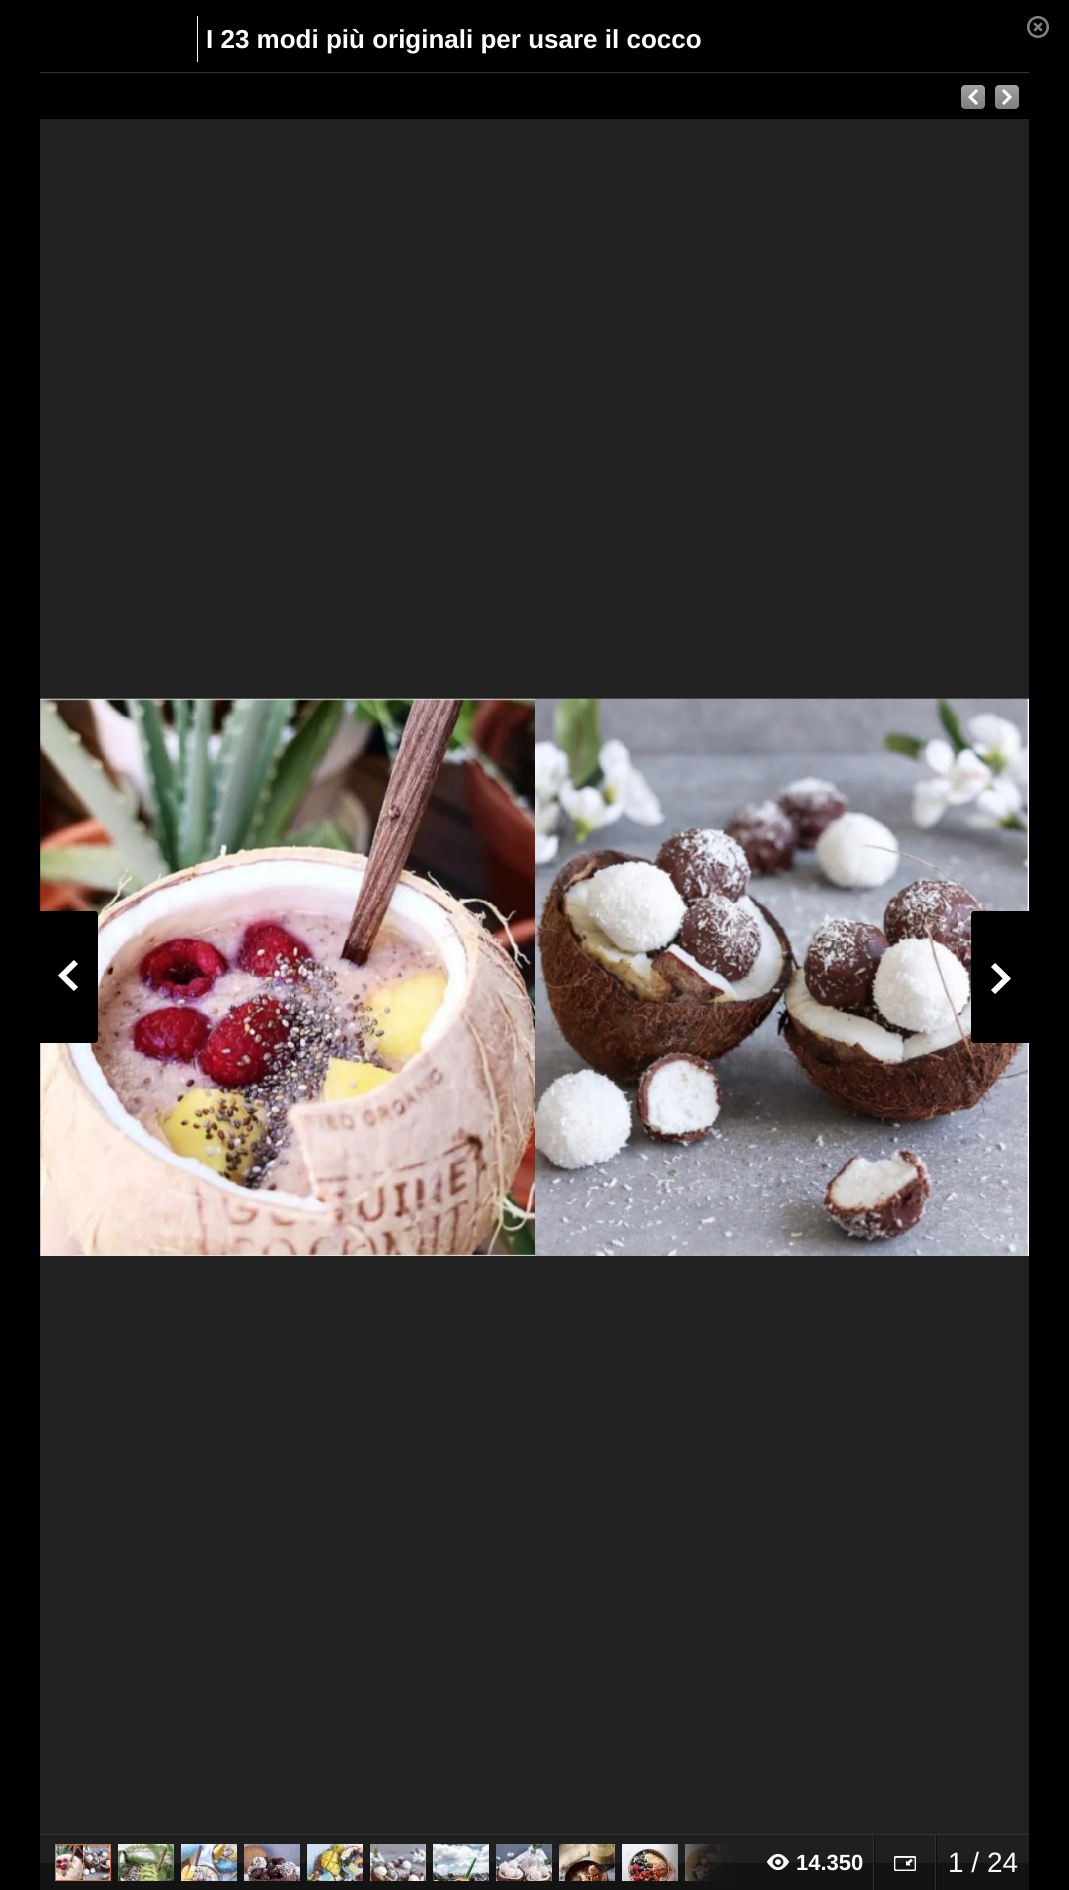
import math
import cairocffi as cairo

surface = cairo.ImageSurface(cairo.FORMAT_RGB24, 1069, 1890)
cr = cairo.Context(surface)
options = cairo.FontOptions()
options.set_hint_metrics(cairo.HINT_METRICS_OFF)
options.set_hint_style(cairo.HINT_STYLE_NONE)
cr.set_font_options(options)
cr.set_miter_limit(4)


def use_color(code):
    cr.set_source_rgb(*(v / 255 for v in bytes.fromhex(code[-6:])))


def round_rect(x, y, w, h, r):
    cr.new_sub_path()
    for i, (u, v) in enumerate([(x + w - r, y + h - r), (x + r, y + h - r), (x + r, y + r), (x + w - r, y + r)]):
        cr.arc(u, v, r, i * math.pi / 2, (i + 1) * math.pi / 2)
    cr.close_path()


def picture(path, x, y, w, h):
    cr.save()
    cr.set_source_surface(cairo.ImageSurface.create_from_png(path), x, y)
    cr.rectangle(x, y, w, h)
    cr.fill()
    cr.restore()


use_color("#000000")
cr.paint()
use_color("#333333")
cr.rectangle(40, 72, 989, 1)
cr.fill()
use_color("#f7f7f5")
cr.rectangle(197, 16, 1, 46)
cr.fill()
cr.select_font_face("Liberation Sans", cairo.FONT_SLANT_NORMAL, cairo.FONT_WEIGHT_BOLD)
cr.set_font_size(26)
use_color("#ffffff")
cr.move_to(206, 48)
cr.show_text("I 23 modi più originali per usare il cocco")
picture("img1.png", 1027, 16, 22, 22)
gradient = cairo.LinearGradient(973, 85, 973, 109)
gradient.add_color_stop_rgba(0, 0.631, 0.631, 0.631, 1)
gradient.add_color_stop_rgba(1, 0.494, 0.494, 0.494, 1)
cr.set_source(gradient)
round_rect(961, 85, 24, 24, 4)
cr.fill()
picture("img2.png", 968, 89, 10, 16)
gradient = cairo.LinearGradient(1007, 85, 1007, 109)
gradient.add_color_stop_rgba(0, 0.631, 0.631, 0.631, 1)
gradient.add_color_stop_rgba(1, 0.494, 0.494, 0.494, 1)
cr.set_source(gradient)
round_rect(995, 85, 24, 24, 4)
cr.fill()
picture("img3.png", 1002, 89, 10, 16)
use_color("#212121")
cr.rectangle(40, 119, 989, 1715)
cr.fill()
picture("img4.png", 40, 698, 989, 558)
use_color("#000000")
cr.new_path()
cr.move_to(40, 911)
cr.line_to(95, 911)
cr.curve_to(96.5, 911, 98, 912.5, 98, 914)
cr.line_to(98, 1040)
cr.curve_to(98, 1041.5, 96.5, 1043, 95, 1043)
cr.line_to(40, 1043)
cr.close_path()
cr.fill()
picture("img5.png", 58, 960, 20, 31)
cr.new_path()
cr.move_to(974, 911)
cr.line_to(1029, 911)
cr.line_to(1029, 1043)
cr.line_to(974, 1043)
cr.curve_to(972.5, 1043, 971, 1041.5, 971, 1040)
cr.line_to(971, 914)
cr.curve_to(971, 912.5, 972.5, 911, 974, 911)
cr.close_path()
cr.fill()
picture("img6.png", 991, 963, 20, 31)
use_color("#131313")
cr.rectangle(40, 1863, 989, 27)
cr.fill()
use_color("#1f1f1f")
cr.rectangle(40, 1835, 989, 28)
cr.fill()
use_color("#313131")
cr.rectangle(40, 1834, 989, 1)
cr.fill()
cr.rectangle(55.5, 1844.5, 55, 36)
use_color("#da6d31")
cr.set_line_width(1)
cr.stroke()
picture("img7.png", 56, 1845, 54, 35)
picture("img8.png", 118, 1844, 56, 37)
picture("img9.png", 181, 1844, 56, 37)
picture("img10.png", 244, 1844, 56, 37)
picture("img11.png", 307, 1844, 56, 37)
picture("img12.png", 370, 1844, 56, 37)
picture("img13.png", 433, 1844, 56, 37)
picture("img14.png", 496, 1844, 56, 37)
picture("img15.png", 559, 1844, 56, 37)
picture("img16.png", 622, 1844, 56, 37)
picture("img17.png", 685, 1844, 48, 37)
picture("img18.png", 658, 1844, 98, 37)
use_color("#313131")
cr.rectangle(873, 1835, 1, 55)
cr.fill()
picture("img19.png", 767, 1854, 22, 16)
cr.set_font_size(22)
use_color("#ffffff")
cr.move_to(796, 1870)
cr.show_text("14.350")
use_color("#313131")
cr.rectangle(935, 1835, 1, 55)
cr.fill()
use_color("#0f0f0f")
cr.rectangle(874, 1835, 1, 55)
cr.fill()
picture("img20.png", 894, 1856, 22, 15)
cr.rectangle(936, 1835, 1, 55)
cr.fill()
cr.select_font_face("Liberation Sans")
cr.set_font_size(28)
use_color("#ffffff")
cr.move_to(948, 1872)
cr.show_text("1 / 24")
surface.write_to_png("result.png")
